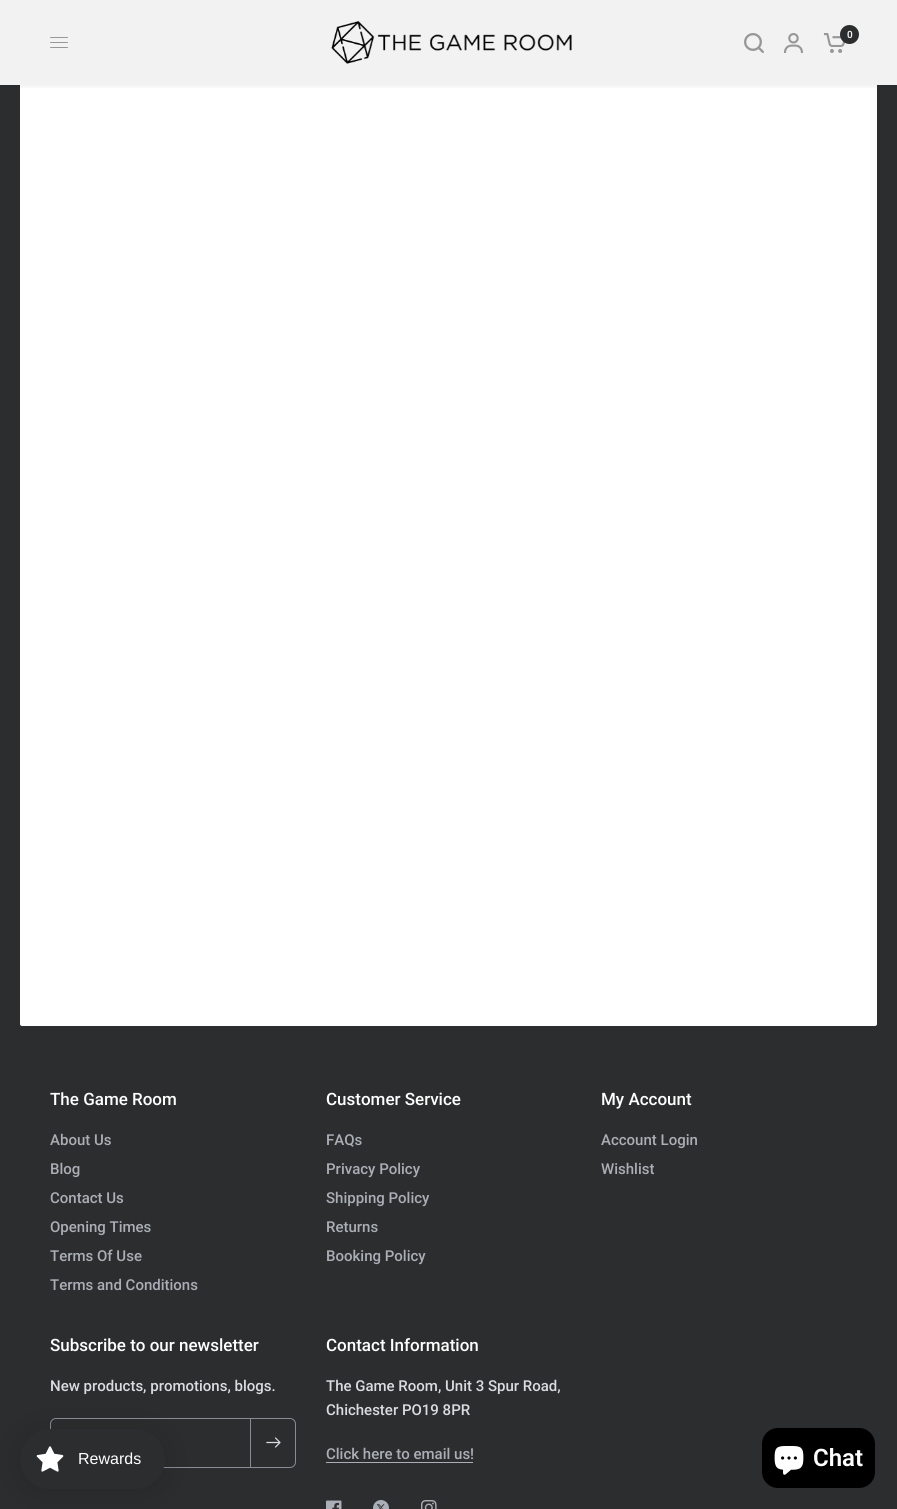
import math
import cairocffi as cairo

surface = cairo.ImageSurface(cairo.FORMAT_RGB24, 897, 1509)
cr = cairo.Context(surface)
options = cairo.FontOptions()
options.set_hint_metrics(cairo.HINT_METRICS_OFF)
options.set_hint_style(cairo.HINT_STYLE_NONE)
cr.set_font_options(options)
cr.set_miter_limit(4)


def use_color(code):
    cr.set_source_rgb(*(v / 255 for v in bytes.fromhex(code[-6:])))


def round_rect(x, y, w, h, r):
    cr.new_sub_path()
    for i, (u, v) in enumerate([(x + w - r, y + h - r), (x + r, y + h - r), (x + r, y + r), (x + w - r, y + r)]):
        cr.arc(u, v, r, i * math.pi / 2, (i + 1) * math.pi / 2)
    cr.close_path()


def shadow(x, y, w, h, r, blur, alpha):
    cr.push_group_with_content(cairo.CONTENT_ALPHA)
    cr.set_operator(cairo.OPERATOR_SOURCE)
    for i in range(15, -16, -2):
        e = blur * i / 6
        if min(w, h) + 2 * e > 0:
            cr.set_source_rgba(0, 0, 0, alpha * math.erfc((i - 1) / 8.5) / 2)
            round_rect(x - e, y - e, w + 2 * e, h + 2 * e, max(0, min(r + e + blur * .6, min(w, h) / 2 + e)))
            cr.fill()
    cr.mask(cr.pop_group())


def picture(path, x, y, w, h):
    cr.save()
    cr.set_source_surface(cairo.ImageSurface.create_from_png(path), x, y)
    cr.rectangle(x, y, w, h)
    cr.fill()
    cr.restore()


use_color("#2c2d2e")
cr.paint()
use_color("#ffffff")
round_rect(20, -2, 857, 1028, 2)
cr.fill()
use_color("#f2f2f2")
cr.rectangle(0, 0, 897, 85)
cr.fill()
cr.save()
cr.rectangle(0, 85, 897, 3)
cr.clip()
use_color("#000000")
shadow(0, 2, 897, 85, 0, 2.5, 0.06)
cr.restore()
picture("img1.png", 331, 21, 241, 43)
picture("img2.png", 744, 33, 20, 20)
picture("img3.png", 784, 33, 19, 20)
picture("img4.png", 823, 33, 22, 20)
use_color("#2c2d2e")
cr.arc(849.5, 34.5, 9.5, 0, 2 * math.pi)
cr.fill()
cr.select_font_face("Roboto SemiBold")
cr.set_font_size(10)
use_color("#f2f2f2")
cr.move_to(847, 38)
cr.show_text("0")
use_color("#979797")
round_rect(50, 37, 18, 1, 0.5)
cr.fill()
round_rect(50, 42, 18, 1, 0.5)
cr.fill()
round_rect(50, 47, 18, 1, 0.5)
cr.fill()
cr.select_font_face("Roboto Medium")
cr.set_font_size(17)
use_color("#ffffff")
cr.move_to(50, 1105)
cr.show_text("The Game Room")
cr.set_font_size(15)
use_color("#aaaeb6")
cr.move_to(50, 1145)
cr.show_text("About Us")
cr.move_to(50, 1174)
cr.show_text("Blog")
cr.move_to(50, 1203)
cr.show_text("Contact Us")
cr.move_to(50, 1232)
cr.show_text("Opening Times")
cr.move_to(50, 1261)
cr.show_text("Terms Of Use")
cr.move_to(50, 1290)
cr.show_text("Terms and Conditions")
cr.set_font_size(17)
use_color("#ffffff")
cr.move_to(326, 1105)
cr.show_text("Customer Service")
cr.set_font_size(15)
use_color("#aaaeb6")
cr.move_to(326, 1145)
cr.show_text("FAQs")
cr.move_to(326, 1174)
cr.show_text("Privacy Policy")
cr.move_to(326, 1203)
cr.show_text("Shipping Policy")
cr.move_to(326, 1232)
cr.show_text("Returns")
cr.move_to(326, 1261)
cr.show_text("Booking Policy")
cr.set_font_size(17)
use_color("#ffffff")
cr.move_to(601, 1105)
cr.show_text("My Account")
cr.set_font_size(15)
use_color("#aaaeb6")
cr.move_to(601, 1145)
cr.show_text("Account Login")
cr.move_to(601, 1174)
cr.show_text("Wishlist")
cr.set_font_size(17)
use_color("#ffffff")
cr.move_to(50, 1351)
cr.show_text("Subscribe to our newsletter")
cr.set_font_size(15)
use_color("#dadce0")
cr.move_to(50, 1391)
cr.show_text("New products, promotions, blogs.")
round_rect(50.5, 1418.5, 245, 49, 5.5)
use_color("#868d94")
cr.set_line_width(1)
cr.stroke()
cr.rectangle(250, 1419, 1, 48)
cr.fill()
picture("img5.png", 266, 1437, 15, 11)
cr.set_font_size(17)
use_color("#ffffff")
cr.move_to(326, 1351)
cr.show_text("Contact Information")
cr.set_font_size(15)
use_color("#dadce0")
cr.move_to(326, 1391)
cr.show_text("The Game Room, Unit 3 Spur Road,")
cr.move_to(326, 1415)
cr.show_text("Chichester PO19 8PR")
use_color("#aaaeb6")
cr.move_to(326, 1459)
cr.show_text("Click here to email us!")
cr.rectangle(326, 1462, 147, 1)
cr.fill()
picture("img6.png", 326, 1500, 16, 9)
picture("img7.png", 373, 1500, 16, 9)
picture("img8.png", 421, 1500, 16, 9)
use_color("#000000")
shadow(20, 1431, 145, 60, 30, 15, 0.15)
use_color("#2c2d2e")
round_rect(20, 1429, 145, 60, 30)
cr.fill()
picture("img9.png", 36, 1446, 28, 26)
cr.select_font_face("Liberation Sans")
cr.set_font_size(16)
use_color("#ffffff")
cr.move_to(78, 1464)
cr.show_text("Rewards")
use_color("#000000")
round_rect(762, 1428, 113, 60, 16)
cr.fill()
picture("img10.png", 774, 1446, 30, 29)
cr.select_font_face("Roboto SemiBold")
cr.set_font_size(24)
use_color("#ffffff")
cr.move_to(813, 1466)
cr.show_text("Chat")
surface.write_to_png("result.png")
